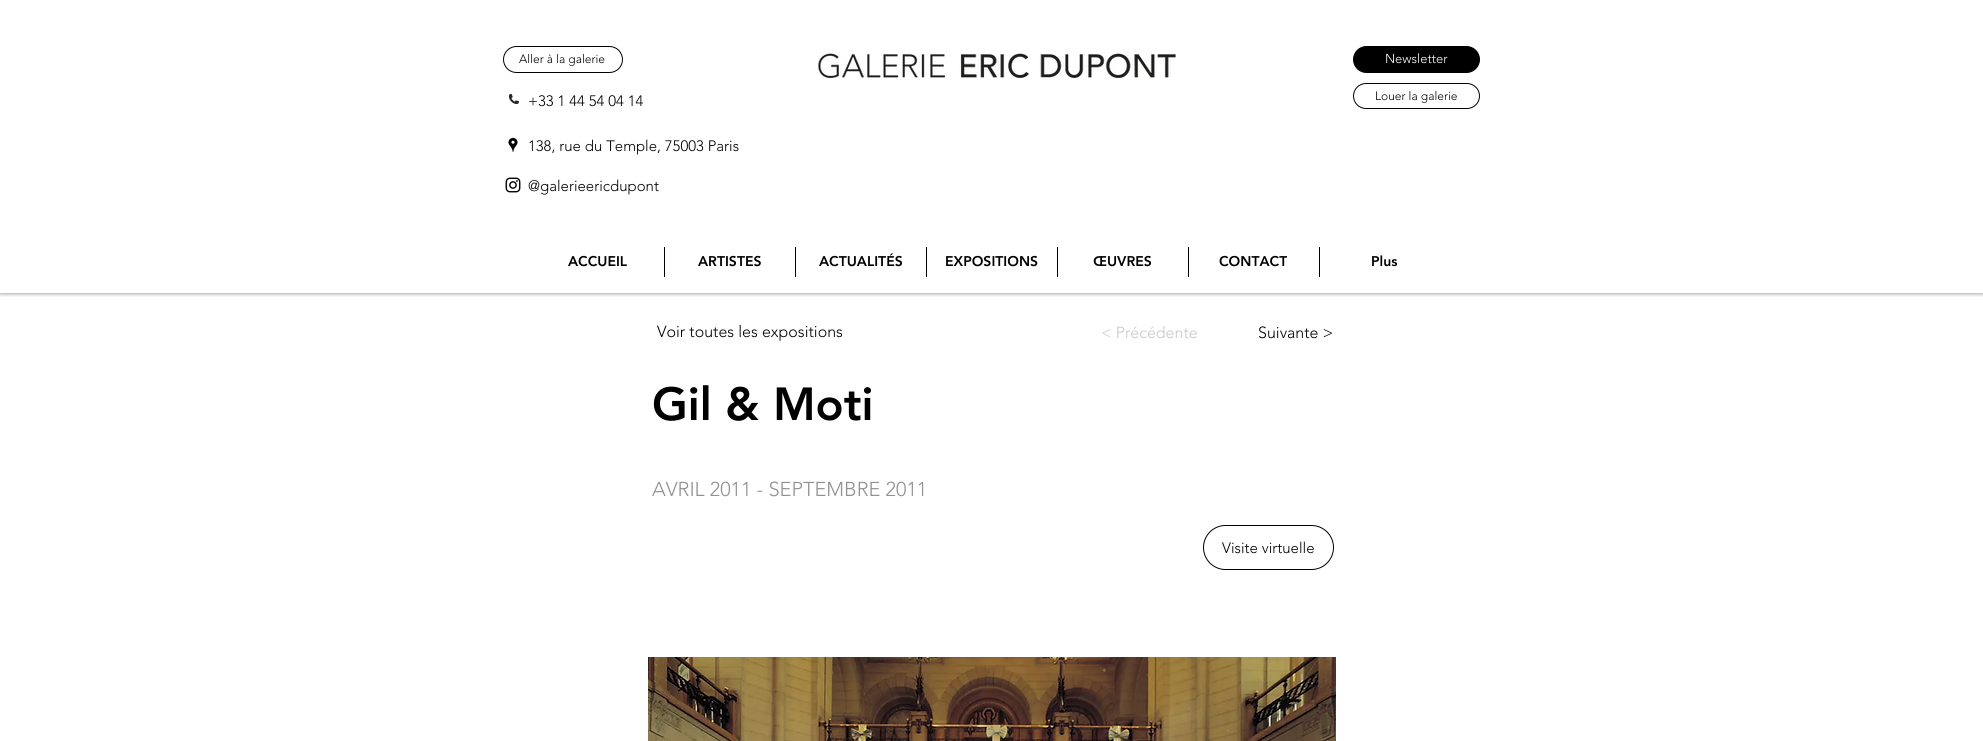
import math
import cairocffi as cairo

surface = cairo.ImageSurface(cairo.FORMAT_RGB24, 1983, 741)
cr = cairo.Context(surface)
options = cairo.FontOptions()
options.set_hint_metrics(cairo.HINT_METRICS_OFF)
options.set_hint_style(cairo.HINT_STYLE_NONE)
cr.set_font_options(options)
cr.set_miter_limit(4)


def use_color(code):
    cr.set_source_rgb(*(v / 255 for v in bytes.fromhex(code[-6:])))


def round_rect(x, y, w, h, r):
    cr.new_sub_path()
    for i, (u, v) in enumerate([(x + w - r, y + h - r), (x + r, y + h - r), (x + r, y + r), (x + w - r, y + r)]):
        cr.arc(u, v, r, i * math.pi / 2, (i + 1) * math.pi / 2)
    cr.close_path()


def shadow(x, y, w, h, r, blur, alpha):
    cr.push_group_with_content(cairo.CONTENT_ALPHA)
    cr.set_operator(cairo.OPERATOR_SOURCE)
    for i in range(15, -16, -2):
        e = blur * i / 6
        if min(w, h) + 2 * e > 0:
            cr.set_source_rgba(0, 0, 0, alpha * math.erfc((i - 1) / 8.5) / 2)
            round_rect(x - e, y - e, w + 2 * e, h + 2 * e, max(0, min(r + e + blur * .6, min(w, h) / 2 + e)))
            cr.fill()
    cr.mask(cr.pop_group())


def picture(path, x, y, w, h):
    cr.save()
    cr.set_source_surface(cairo.ImageSurface.create_from_png(path), x, y)
    cr.rectangle(x, y, w, h)
    cr.fill()
    cr.restore()


use_color("#ffffff")
cr.paint()
cr.save()
cr.rectangle(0, 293, 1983, 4)
cr.clip()
use_color("#000000")
shadow(0, 0, 1983, 293, 0, 2.5, 0.5)
cr.restore()
round_rect(503.5, 46.5, 119, 26, 13)
use_color("#000000")
cr.set_line_width(1)
cr.stroke()
cr.select_font_face("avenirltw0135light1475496 Light")
cr.set_font_size(12)
cr.move_to(519, 63)
cr.show_text("Aller à la galerie")
picture("img1.png", 818, 53, 358, 25)
round_rect(1353.5, 46.5, 126, 26, 13)
cr.fill_preserve()
cr.stroke()
cr.set_font_size(13)
use_color("#ffffff")
cr.move_to(1385, 63)
cr.show_text("Newsletter")
picture("img2.png", 509, 94, 10, 10)
cr.set_font_size(15)
use_color("#000000")
cr.move_to(528, 106)
cr.show_text("+33 1 44 54 04 14")
picture("img3.png", 508, 137, 10, 15)
picture("img4.png", 505, 177, 16, 16)
cr.move_to(528, 151)
cr.show_text("138, rue du Temple, 75003 Paris")
cr.move_to(528, 191)
cr.show_text("@galerieericdupont")
round_rect(1353.5, 83.5, 126, 25, 12.5)
cr.stroke()
cr.set_font_size(12)
cr.move_to(1375, 100)
cr.show_text("Louer la galerie")
cr.select_font_face("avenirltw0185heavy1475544 Black")
cr.set_font_size(14)
cr.move_to(568, 266)
cr.show_text("ACCUEIL")
cr.rectangle(664, 247, 1, 30)
cr.fill()
cr.move_to(698, 266)
cr.show_text("ARTISTES")
cr.rectangle(795, 247, 1, 30)
cr.fill()
cr.move_to(819, 266)
cr.show_text("ACTUALITÉS")
cr.rectangle(926, 247, 1, 30)
cr.fill()
cr.move_to(945, 266)
cr.show_text("EXPOSITIONS")
cr.rectangle(1057, 247, 1, 30)
cr.fill()
cr.move_to(1093, 266)
cr.show_text("ŒUVRES")
cr.rectangle(1188, 247, 1, 30)
cr.fill()
cr.move_to(1219, 266)
cr.show_text("CONTACT")
cr.rectangle(1319, 247, 1, 30)
cr.fill()
cr.move_to(1371, 266)
cr.show_text("Plus")
cr.select_font_face("avenirltw0135light1475496 Light")
cr.set_font_size(16)
cr.move_to(657, 337)
cr.show_text("Voir toutes les expositions")
use_color("#c7c7c7")
cr.move_to(1101, 338)
cr.show_text("< Précédente")
use_color("#000000")
cr.move_to(1258, 338)
cr.show_text("Suivante >")
cr.select_font_face("avenirltw0185heavy1475544 Black")
cr.set_font_size(46)
cr.move_to(652, 420)
cr.show_text("Gil & Moti")
cr.select_font_face("avenirltw0135light1475496 Light")
cr.set_font_size(20)
use_color("#919191")
cr.move_to(652, 496)
cr.show_text("AVRIL 2011 - SEPTEMBRE 2011")
round_rect(1203.5, 525.5, 130, 44, 22)
use_color("#000000")
cr.stroke()
cr.set_font_size(15)
cr.move_to(1222, 553)
cr.show_text("Visite virtuelle")
picture("img5.png", 648, 657, 688, 84)
surface.write_to_png("result.png")
